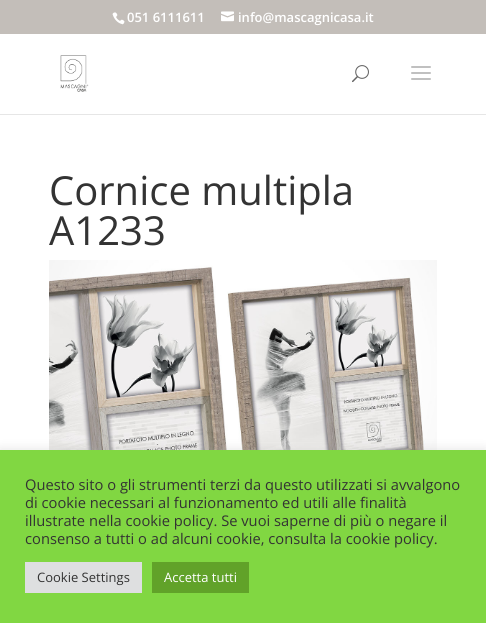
import math
import cairocffi as cairo

surface = cairo.ImageSurface(cairo.FORMAT_RGB24, 486, 623)
cr = cairo.Context(surface)
options = cairo.FontOptions()
options.set_hint_metrics(cairo.HINT_METRICS_OFF)
options.set_hint_style(cairo.HINT_STYLE_NONE)
cr.set_font_options(options)
cr.set_miter_limit(4)


def use_color(code):
    cr.set_source_rgb(*(v / 255 for v in bytes.fromhex(code[-6:])))


def round_rect(x, y, w, h, r):
    cr.new_sub_path()
    for i, (u, v) in enumerate([(x + w - r, y + h - r), (x + r, y + h - r), (x + r, y + r), (x + w - r, y + r)]):
        cr.arc(u, v, r, i * math.pi / 2, (i + 1) * math.pi / 2)
    cr.close_path()


def shadow(x, y, w, h, r, blur, alpha):
    cr.push_group_with_content(cairo.CONTENT_ALPHA)
    cr.set_operator(cairo.OPERATOR_SOURCE)
    for i in range(15, -16, -2):
        e = blur * i / 6
        if min(w, h) + 2 * e > 0:
            cr.set_source_rgba(0, 0, 0, alpha * math.erfc((i - 1) / 8.5) / 2)
            round_rect(x - e, y - e, w + 2 * e, h + 2 * e, max(0, min(r + e + blur * .6, min(w, h) / 2 + e)))
            cr.fill()
    cr.mask(cr.pop_group())


def picture(path, x, y, w, h):
    cr.save()
    cr.set_source_surface(cairo.ImageSurface.create_from_png(path), x, y)
    cr.rectangle(x, y, w, h)
    cr.fill()
    cr.restore()


use_color("#ffffff")
cr.paint()
use_color("#c3beb9")
cr.rectangle(0, 0, 486, 34)
cr.fill()
picture("img1.png", 112, 12, 13, 13)
cr.select_font_face("Open Sans SemiBold")
cr.set_font_size(13)
use_color("#ffffff")
cr.move_to(127, 22)
cr.show_text("051 6111611")
picture("img2.png", 221, 11, 13, 11)
cr.move_to(238, 22)
cr.show_text("info@mascagnicasa.it")
use_color("#e6e6e6")
cr.rectangle(0, 114, 486, 1)
cr.fill()
picture("img3.png", 60, 55, 29, 37)
picture("img4.png", 352, 65, 17, 18)
picture("img5.png", 411, 66, 20, 14)
cr.select_font_face("Open Sans")
cr.set_font_size(40)
use_color("#333333")
cr.move_to(49, 205)
cr.show_text("Cornice multipla")
cr.move_to(49, 245)
cr.show_text("A1233")
picture("img6.png", 49, 260, 388, 190)
use_color("#acabab")
shadow(0, 449, 486, 173, 0, 5, 0.3)
use_color("#81d742")
cr.rectangle(0, 450, 486, 173)
cr.fill()
cr.set_font_size(14.7)
use_color("#333333")
cr.move_to(25, 490)
cr.show_text("Questo sito o gli strumenti terzi da questo utilizzati si avvalgono")
cr.move_to(25, 508)
cr.show_text("di cookie necessari al funzionamento ed utili alle finalità")
cr.move_to(25, 526)
cr.show_text("illustrate nella cookie policy. Se vuoi saperne di più o negare il")
cr.move_to(25, 544)
cr.show_text("consenso a tutti o ad alcuni cookie, consulta la cookie policy.")
use_color("#dedfe0")
cr.rectangle(25, 562, 117, 31)
cr.fill()
cr.set_font_size(13)
use_color("#333333")
cr.move_to(37, 582)
cr.show_text("Cookie Settings")
use_color("#61a229")
cr.rectangle(152, 562, 97, 31)
cr.fill()
use_color("#ffffff")
cr.move_to(164, 582)
cr.show_text("Accetta tutti")
surface.write_to_png("result.png")
